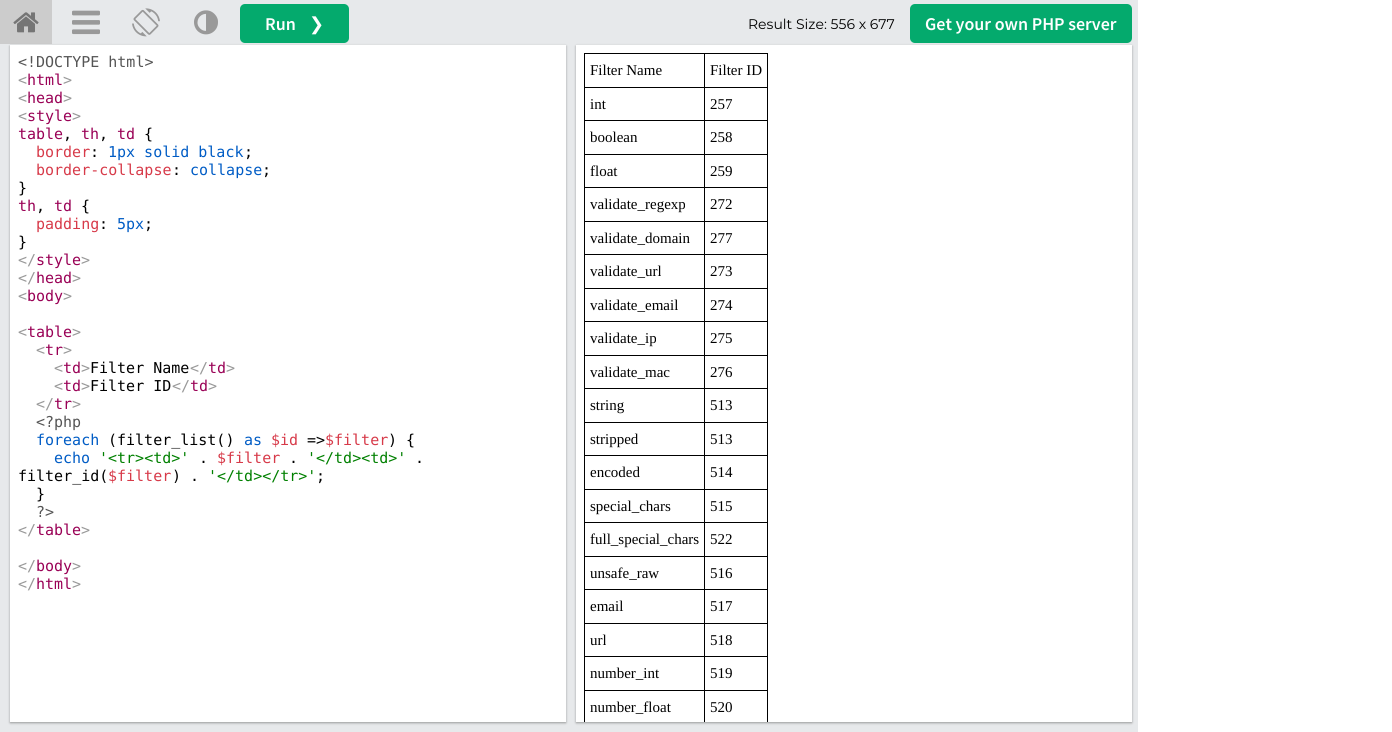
import math
import cairocffi as cairo

surface = cairo.ImageSurface(cairo.FORMAT_RGB24, 1392, 732)
cr = cairo.Context(surface)
options = cairo.FontOptions()
options.set_hint_metrics(cairo.HINT_METRICS_OFF)
options.set_hint_style(cairo.HINT_STYLE_NONE)
cr.set_font_options(options)
cr.set_miter_limit(4)


def use_color(code):
    cr.set_source_rgb(*(v / 255 for v in bytes.fromhex(code[-6:])))


def round_rect(x, y, w, h, r):
    cr.new_sub_path()
    for i, (u, v) in enumerate([(x + w - r, y + h - r), (x + r, y + h - r), (x + r, y + r), (x + w - r, y + r)]):
        cr.arc(u, v, r, i * math.pi / 2, (i + 1) * math.pi / 2)
    cr.close_path()


def shadow(x, y, w, h, r, blur, alpha):
    cr.push_group_with_content(cairo.CONTENT_ALPHA)
    cr.set_operator(cairo.OPERATOR_SOURCE)
    for i in range(15, -16, -2):
        e = blur * i / 6
        if min(w, h) + 2 * e > 0:
            cr.set_source_rgba(0, 0, 0, alpha * math.erfc((i - 1) / 8.5) / 2)
            round_rect(x - e, y - e, w + 2 * e, h + 2 * e, max(0, min(r + e + blur * .6, min(w, h) / 2 + e)))
            cr.fill()
    cr.mask(cr.pop_group())


def picture(path, x, y, w, h):
    cr.save()
    cr.set_source_surface(cairo.ImageSurface.create_from_png(path), x, y)
    cr.rectangle(x, y, w, h)
    cr.fill()
    cr.restore()


use_color("#ffffff")
cr.paint()
use_color("#e7e9eb")
cr.rectangle(52, 0, 1086, 44)
cr.fill()
use_color("#cccccc")
cr.rectangle(0, 0, 52, 44)
cr.fill()
picture("img1.png", 13, 12, 26, 21)
picture("img2.png", 72, 10, 28, 25)
picture("img3.png", 132, 8, 28, 29)
picture("img4.png", 194, 10, 24, 25)
use_color("#04aa6d")
round_rect(240, 4, 109, 39, 5)
cr.fill()
cr.select_font_face("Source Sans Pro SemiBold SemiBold")
cr.set_font_size(18)
use_color("#ffffff")
cr.move_to(265, 30)
cr.show_text("Run")
cr.select_font_face("DejaVu Sans")
cr.move_to(309, 30)
cr.show_text("❯")
cr.select_font_face("Montserrat")
cr.set_font_size(14)
use_color("#000000")
cr.move_to(748, 29)
cr.show_text("Result Size: 556 x 677")
use_color("#04aa6d")
round_rect(910, 4, 222, 39, 5)
cr.fill()
cr.select_font_face("Source Sans Pro SemiBold SemiBold")
cr.set_font_size(18)
use_color("#ffffff")
cr.move_to(925, 30)
cr.show_text("Get your own PHP server")
use_color("#e7e9eb")
cr.rectangle(0, 44, 1138, 688)
cr.fill()
use_color("#000000")
shadow(10, 46, 556, 677, 0, 1, 0.24)
shadow(10, 46, 556, 677, 0, 1.5, 0.12)
use_color("#ffffff")
cr.rectangle(10, 45, 556, 677)
cr.fill()
cr.select_font_face("DejaVu Sans Mono")
cr.set_font_size(15)
use_color("#555555")
cr.move_to(18, 67)
cr.show_text("<!DOCTYPE html>")
use_color("#999999")
cr.move_to(18, 85)
cr.show_text("<")
use_color("#990055")
cr.move_to(27, 85)
cr.show_text("html")
use_color("#999999")
cr.move_to(63, 85)
cr.show_text(">")
cr.move_to(18, 103)
cr.show_text("<")
use_color("#990055")
cr.move_to(27, 103)
cr.show_text("head")
use_color("#999999")
cr.move_to(63, 103)
cr.show_text(">")
cr.move_to(18, 121)
cr.show_text("<")
use_color("#990055")
cr.move_to(27, 121)
cr.show_text("style")
use_color("#999999")
cr.move_to(72, 121)
cr.show_text(">")
use_color("#990055")
cr.move_to(18, 139)
cr.show_text("table")
use_color("#000000")
cr.move_to(63, 139)
cr.show_text(",")
use_color("#990055")
cr.move_to(81, 139)
cr.show_text("th")
use_color("#000000")
cr.move_to(99, 139)
cr.show_text(",")
use_color("#990055")
cr.move_to(117, 139)
cr.show_text("td")
use_color("#000000")
cr.move_to(144, 139)
cr.show_text("{")
use_color("#d73a49")
cr.move_to(36, 157)
cr.show_text("border")
use_color("#000000")
cr.move_to(90, 157)
cr.show_text(":")
use_color("#005cc5")
cr.move_to(108, 157)
cr.show_text("1px solid black")
use_color("#000000")
cr.move_to(244, 157)
cr.show_text(";")
use_color("#d73a49")
cr.move_to(36, 175)
cr.show_text("border-collapse")
use_color("#000000")
cr.move_to(172, 175)
cr.show_text(":")
use_color("#005cc5")
cr.move_to(190, 175)
cr.show_text("collapse")
use_color("#000000")
cr.move_to(262, 175)
cr.show_text(";")
cr.move_to(18, 193)
cr.show_text("}")
use_color("#990055")
cr.move_to(18, 211)
cr.show_text("th")
use_color("#000000")
cr.move_to(36, 211)
cr.show_text(",")
use_color("#990055")
cr.move_to(54, 211)
cr.show_text("td")
use_color("#000000")
cr.move_to(81, 211)
cr.show_text("{")
use_color("#d73a49")
cr.move_to(36, 229)
cr.show_text("padding")
use_color("#000000")
cr.move_to(99, 229)
cr.show_text(":")
use_color("#005cc5")
cr.move_to(117, 229)
cr.show_text("5px")
use_color("#000000")
cr.move_to(144, 229)
cr.show_text(";")
cr.move_to(18, 247)
cr.show_text("}")
use_color("#999999")
cr.move_to(18, 265)
cr.show_text("</")
use_color("#990055")
cr.move_to(36, 265)
cr.show_text("style")
use_color("#999999")
cr.move_to(81, 265)
cr.show_text(">")
cr.move_to(18, 283)
cr.show_text("</")
use_color("#990055")
cr.move_to(36, 283)
cr.show_text("head")
use_color("#999999")
cr.move_to(72, 283)
cr.show_text(">")
cr.move_to(18, 301)
cr.show_text("<")
use_color("#990055")
cr.move_to(27, 301)
cr.show_text("body")
use_color("#999999")
cr.move_to(63, 301)
cr.show_text(">")
cr.move_to(18, 337)
cr.show_text("<")
use_color("#990055")
cr.move_to(27, 337)
cr.show_text("table")
use_color("#999999")
cr.move_to(72, 337)
cr.show_text(">")
cr.move_to(36, 355)
cr.show_text("<")
use_color("#990055")
cr.move_to(45, 355)
cr.show_text("tr")
use_color("#999999")
cr.move_to(63, 355)
cr.show_text(">")
cr.move_to(54, 373)
cr.show_text("<")
use_color("#990055")
cr.move_to(63, 373)
cr.show_text("td")
use_color("#999999")
cr.move_to(81, 373)
cr.show_text(">")
use_color("#000000")
cr.move_to(90, 373)
cr.show_text("Filter Name")
use_color("#999999")
cr.move_to(190, 373)
cr.show_text("</")
use_color("#990055")
cr.move_to(208, 373)
cr.show_text("td")
use_color("#999999")
cr.move_to(226, 373)
cr.show_text(">")
cr.move_to(54, 391)
cr.show_text("<")
use_color("#990055")
cr.move_to(63, 391)
cr.show_text("td")
use_color("#999999")
cr.move_to(81, 391)
cr.show_text(">")
use_color("#000000")
cr.move_to(90, 391)
cr.show_text("Filter ID")
use_color("#999999")
cr.move_to(172, 391)
cr.show_text("</")
use_color("#990055")
cr.move_to(190, 391)
cr.show_text("td")
use_color("#999999")
cr.move_to(208, 391)
cr.show_text(">")
cr.move_to(36, 409)
cr.show_text("</")
use_color("#990055")
cr.move_to(54, 409)
cr.show_text("tr")
use_color("#999999")
cr.move_to(72, 409)
cr.show_text(">")
use_color("#555555")
cr.move_to(36, 427)
cr.show_text("<?php")
use_color("#005cc5")
cr.move_to(36, 445)
cr.show_text("foreach")
use_color("#000000")
cr.move_to(108, 445)
cr.show_text("(filter_list()")
use_color("#005cc5")
cr.move_to(244, 445)
cr.show_text("as")
use_color("#d73a49")
cr.move_to(271, 445)
cr.show_text("$id")
use_color("#000000")
cr.move_to(307, 445)
cr.show_text("=>")
use_color("#d73a49")
cr.move_to(325, 445)
cr.show_text("$filter")
use_color("#000000")
cr.move_to(388, 445)
cr.show_text(") {")
use_color("#005cc5")
cr.move_to(54, 463)
cr.show_text("echo")
use_color("#008000")
cr.move_to(99, 463)
cr.show_text("'<tr><td>'")
use_color("#000000")
cr.move_to(199, 463)
cr.show_text(".")
use_color("#d73a49")
cr.move_to(217, 463)
cr.show_text("$filter")
use_color("#000000")
cr.move_to(289, 463)
cr.show_text(".")
use_color("#008000")
cr.move_to(307, 463)
cr.show_text("'</td><td>'")
use_color("#000000")
cr.move_to(415, 463)
cr.show_text(".")
cr.move_to(18, 481)
cr.show_text("filter_id(")
use_color("#d73a49")
cr.move_to(108, 481)
cr.show_text("$filter")
use_color("#000000")
cr.move_to(172, 481)
cr.show_text(") .")
use_color("#008000")
cr.move_to(208, 481)
cr.show_text("'</td></tr>'")
use_color("#000000")
cr.move_to(316, 481)
cr.show_text(";")
cr.move_to(36, 499)
cr.show_text("}")
use_color("#555555")
cr.move_to(36, 517)
cr.show_text("?>")
use_color("#999999")
cr.move_to(18, 535)
cr.show_text("</")
use_color("#990055")
cr.move_to(36, 535)
cr.show_text("table")
use_color("#999999")
cr.move_to(81, 535)
cr.show_text(">")
cr.move_to(18, 571)
cr.show_text("</")
use_color("#990055")
cr.move_to(36, 571)
cr.show_text("body")
use_color("#999999")
cr.move_to(72, 571)
cr.show_text(">")
cr.move_to(18, 589)
cr.show_text("</")
use_color("#990055")
cr.move_to(36, 589)
cr.show_text("html")
use_color("#999999")
cr.move_to(72, 589)
cr.show_text(">")
use_color("#000000")
shadow(576, 46, 556, 677, 0, 1, 0.24)
shadow(576, 46, 556, 677, 0, 1.5, 0.12)
use_color("#ffffff")
cr.rectangle(576, 45, 556, 677)
cr.fill()
use_color("#000000")
cr.rectangle(584, 53, 184, 1)
cr.fill()
cr.rectangle(767, 53, 1, 669)
cr.fill()
cr.rectangle(584, 53, 1, 669)
cr.fill()
cr.select_font_face("Liberation Serif")
cr.move_to(590, 75)
cr.show_text("Filter Name")
cr.rectangle(704, 87, 64, 1)
cr.fill()
cr.rectangle(704, 120, 64, 1)
cr.fill()
cr.rectangle(704, 154, 64, 1)
cr.fill()
cr.rectangle(704, 187, 64, 1)
cr.fill()
cr.rectangle(704, 221, 64, 1)
cr.fill()
cr.rectangle(704, 254, 64, 1)
cr.fill()
cr.rectangle(704, 288, 64, 1)
cr.fill()
cr.rectangle(704, 321, 64, 1)
cr.fill()
cr.rectangle(704, 355, 64, 1)
cr.fill()
cr.rectangle(704, 388, 64, 1)
cr.fill()
cr.rectangle(704, 422, 64, 1)
cr.fill()
cr.rectangle(704, 455, 64, 1)
cr.fill()
cr.rectangle(704, 489, 64, 1)
cr.fill()
cr.rectangle(704, 522, 64, 1)
cr.fill()
cr.rectangle(704, 556, 64, 1)
cr.fill()
cr.rectangle(704, 589, 64, 1)
cr.fill()
cr.rectangle(704, 623, 64, 1)
cr.fill()
cr.rectangle(704, 656, 64, 1)
cr.fill()
cr.rectangle(704, 690, 64, 1)
cr.fill()
cr.rectangle(704, 690, 1, 32)
cr.fill()
cr.rectangle(584, 690, 121, 1)
cr.fill()
cr.rectangle(704, 656, 1, 35)
cr.fill()
cr.rectangle(584, 656, 121, 1)
cr.fill()
cr.rectangle(704, 623, 1, 34)
cr.fill()
cr.rectangle(584, 623, 121, 1)
cr.fill()
cr.rectangle(704, 589, 1, 35)
cr.fill()
cr.rectangle(584, 589, 121, 1)
cr.fill()
cr.rectangle(704, 556, 1, 34)
cr.fill()
cr.rectangle(584, 556, 121, 1)
cr.fill()
cr.rectangle(704, 522, 1, 35)
cr.fill()
cr.rectangle(584, 522, 121, 1)
cr.fill()
cr.rectangle(704, 489, 1, 34)
cr.fill()
cr.rectangle(584, 489, 121, 1)
cr.fill()
cr.rectangle(704, 455, 1, 35)
cr.fill()
cr.rectangle(584, 455, 121, 1)
cr.fill()
cr.rectangle(704, 422, 1, 34)
cr.fill()
cr.rectangle(584, 422, 121, 1)
cr.fill()
cr.rectangle(704, 388, 1, 35)
cr.fill()
cr.rectangle(584, 388, 121, 1)
cr.fill()
cr.rectangle(704, 355, 1, 34)
cr.fill()
cr.rectangle(584, 355, 121, 1)
cr.fill()
cr.rectangle(704, 321, 1, 35)
cr.fill()
cr.rectangle(584, 321, 121, 1)
cr.fill()
cr.rectangle(704, 288, 1, 34)
cr.fill()
cr.rectangle(584, 288, 121, 1)
cr.fill()
cr.rectangle(704, 254, 1, 35)
cr.fill()
cr.rectangle(584, 254, 121, 1)
cr.fill()
cr.rectangle(704, 221, 1, 34)
cr.fill()
cr.rectangle(584, 221, 121, 1)
cr.fill()
cr.rectangle(704, 187, 1, 35)
cr.fill()
cr.rectangle(584, 187, 121, 1)
cr.fill()
cr.rectangle(704, 154, 1, 34)
cr.fill()
cr.rectangle(584, 154, 121, 1)
cr.fill()
cr.rectangle(704, 120, 1, 35)
cr.fill()
cr.rectangle(584, 120, 121, 1)
cr.fill()
cr.rectangle(704, 87, 1, 34)
cr.fill()
cr.rectangle(584, 87, 121, 1)
cr.fill()
cr.rectangle(704, 53, 1, 35)
cr.fill()
cr.move_to(710, 75)
cr.show_text("Filter ID")
cr.move_to(590, 109)
cr.show_text("int")
cr.move_to(710, 109)
cr.show_text("257")
cr.move_to(590, 142)
cr.show_text("boolean")
cr.move_to(710, 142)
cr.show_text("258")
cr.move_to(590, 176)
cr.show_text("float")
cr.move_to(710, 176)
cr.show_text("259")
cr.move_to(590, 209)
cr.show_text("validate_regexp")
cr.move_to(710, 209)
cr.show_text("272")
cr.move_to(590, 243)
cr.show_text("validate_domain")
cr.move_to(710, 243)
cr.show_text("277")
cr.move_to(590, 276)
cr.show_text("validate_url")
cr.move_to(710, 276)
cr.show_text("273")
cr.move_to(590, 310)
cr.show_text("validate_email")
cr.move_to(710, 310)
cr.show_text("274")
cr.move_to(590, 343)
cr.show_text("validate_ip")
cr.move_to(710, 343)
cr.show_text("275")
cr.move_to(590, 377)
cr.show_text("validate_mac")
cr.move_to(710, 377)
cr.show_text("276")
cr.move_to(590, 410)
cr.show_text("string")
cr.move_to(710, 410)
cr.show_text("513")
cr.move_to(590, 444)
cr.show_text("stripped")
cr.move_to(710, 444)
cr.show_text("513")
cr.move_to(590, 477)
cr.show_text("encoded")
cr.move_to(710, 477)
cr.show_text("514")
cr.move_to(590, 511)
cr.show_text("special_chars")
cr.move_to(710, 511)
cr.show_text("515")
cr.move_to(590, 544)
cr.show_text("full_special_chars")
cr.move_to(710, 544)
cr.show_text("522")
cr.move_to(590, 578)
cr.show_text("unsafe_raw")
cr.move_to(710, 578)
cr.show_text("516")
cr.move_to(590, 611)
cr.show_text("email")
cr.move_to(710, 611)
cr.show_text("517")
cr.move_to(590, 645)
cr.show_text("url")
cr.move_to(710, 645)
cr.show_text("518")
cr.move_to(590, 678)
cr.show_text("number_int")
cr.move_to(710, 678)
cr.show_text("519")
cr.move_to(590, 712)
cr.show_text("number_float")
cr.move_to(710, 712)
cr.show_text("520")
surface.write_to_png("result.png")
